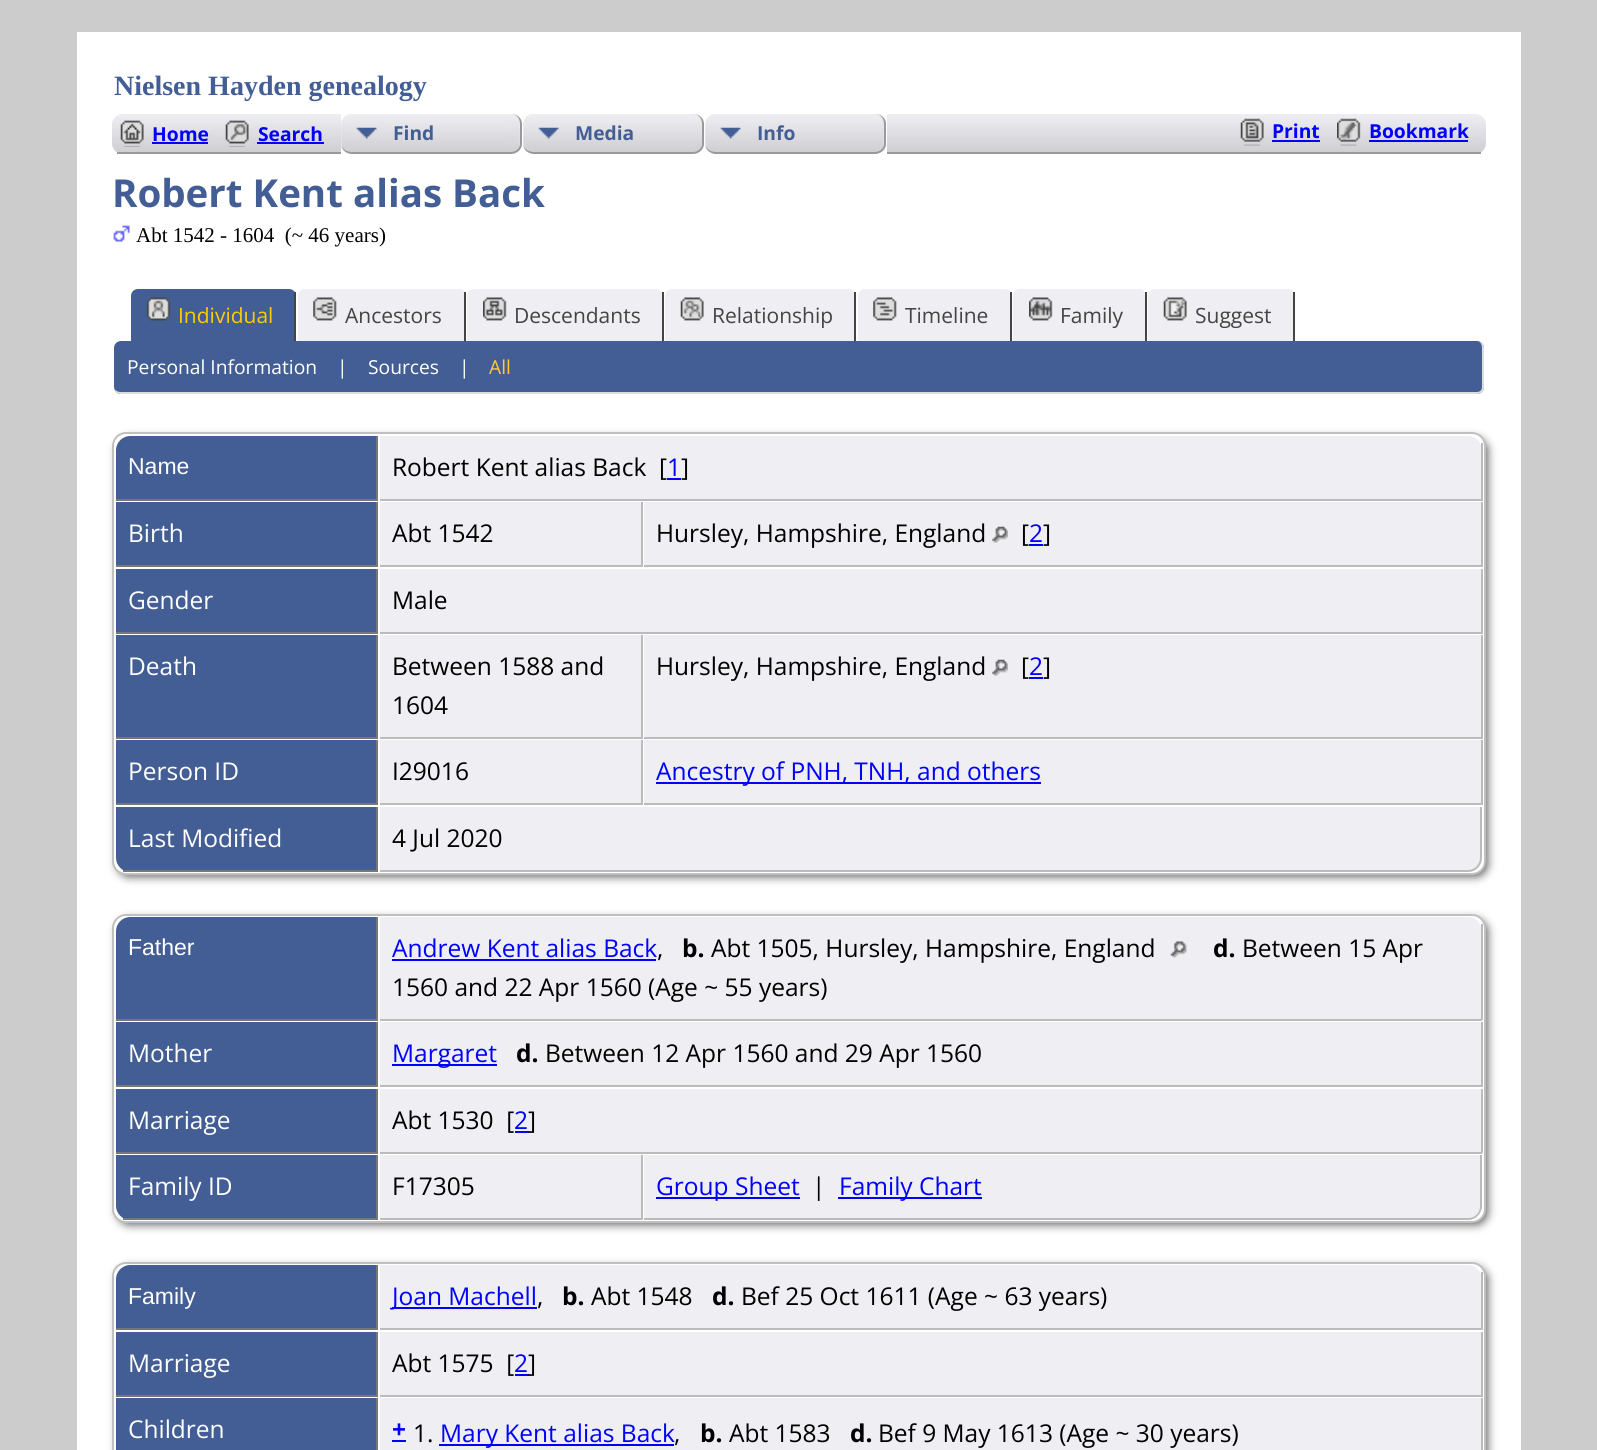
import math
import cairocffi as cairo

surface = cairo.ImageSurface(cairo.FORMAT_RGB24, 1597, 1450)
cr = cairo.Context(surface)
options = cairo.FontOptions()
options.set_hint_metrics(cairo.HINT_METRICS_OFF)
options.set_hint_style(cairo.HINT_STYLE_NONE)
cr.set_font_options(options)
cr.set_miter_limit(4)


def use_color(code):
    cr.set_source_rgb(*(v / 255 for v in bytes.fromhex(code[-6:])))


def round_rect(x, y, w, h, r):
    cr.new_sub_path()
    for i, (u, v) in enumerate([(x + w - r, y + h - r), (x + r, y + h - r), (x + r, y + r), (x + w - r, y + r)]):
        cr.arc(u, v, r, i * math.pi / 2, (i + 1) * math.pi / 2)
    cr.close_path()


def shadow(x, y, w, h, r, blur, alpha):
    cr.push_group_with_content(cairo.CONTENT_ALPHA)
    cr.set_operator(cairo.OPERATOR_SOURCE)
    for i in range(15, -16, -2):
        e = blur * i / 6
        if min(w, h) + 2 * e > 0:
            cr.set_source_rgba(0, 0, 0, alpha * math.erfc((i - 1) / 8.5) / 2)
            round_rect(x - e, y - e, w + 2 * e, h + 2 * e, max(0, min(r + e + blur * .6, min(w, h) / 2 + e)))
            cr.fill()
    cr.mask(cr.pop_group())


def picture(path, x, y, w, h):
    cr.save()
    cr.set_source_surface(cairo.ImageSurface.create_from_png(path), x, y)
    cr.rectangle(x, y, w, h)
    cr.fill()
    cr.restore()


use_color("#cccccc")
cr.paint()
use_color("#ffffff")
cr.rectangle(77, 32, 1444, 1418)
cr.fill()
cr.select_font_face("Liberation Serif", cairo.FONT_SLANT_NORMAL, cairo.FONT_WEIGHT_BOLD)
cr.set_font_size(28)
use_color("#435e95")
cr.move_to(114, 95)
cr.show_text("Nielsen Hayden genealogy")
use_color("#eeeef3")
round_rect(112, 114, 1374, 40, 11)
cr.fill()
cr.save()
round_rect(112, 114, 1374, 40, 11)
cr.clip()
gradient = cairo.LinearGradient(799, 114, 799, 152)
gradient.add_color_stop_rgba(0, 0.933, 0.933, 0.953, 1)
gradient.add_color_stop_rgba(1, 0.808, 0.808, 0.827, 1)
cr.set_source(gradient)
cr.new_path()
cr.move_to(123, 114)
cr.line_to(1475, 114)
cr.curve_to(1481, 114, 1486, 119, 1486, 125)
cr.line_to(1486, 152)
cr.line_to(112, 152)
cr.line_to(112, 125)
cr.curve_to(112, 119, 117, 114, 123, 114)
cr.close_path()
cr.fill()
cr.restore()
use_color("#999999")
cr.rectangle(117, 152, 1364, 2)
cr.fill()
picture("img1.png", 120, 120, 24, 27)
cr.select_font_face("Open Sans", cairo.FONT_SLANT_NORMAL, cairo.FONT_WEIGHT_BOLD)
cr.set_font_size(19.25)
use_color("#0000ff")
cr.move_to(152, 141)
cr.show_text("Home")
cr.rectangle(152, 142, 56, 2)
cr.fill()
picture("img2.png", 225, 120, 24, 27)
cr.move_to(258, 141)
cr.show_text("Search")
cr.rectangle(257, 142, 67, 2)
cr.fill()
use_color("#ffffff")
cr.rectangle(341, 114, 546, 40)
cr.fill()
use_color("#eeeef3")
round_rect(341, 114, 181, 40, 11)
cr.fill()
picture("img3.png", 341, 114, 179, 39)
use_color("#999999")
cr.set_fill_rule(cairo.FILL_RULE_EVEN_ODD)
cr.new_path()
cr.move_to(352, 114)
cr.line_to(511, 114)
cr.curve_to(517, 114, 522, 118, 522, 124)
cr.line_to(522, 144)
cr.curve_to(522, 149, 517, 154, 511, 154)
cr.line_to(352, 154)
cr.curve_to(346, 154, 341, 149, 341, 144)
cr.line_to(341, 124)
cr.curve_to(341, 118, 346, 114, 352, 114)
cr.close_path()
cr.move_to(352, 114)
cr.line_to(511, 114)
cr.curve_to(516, 114, 520, 118, 520, 124)
cr.line_to(520, 144)
cr.curve_to(520, 148, 516, 152, 511, 152)
cr.line_to(352, 152)
cr.curve_to(346, 152, 341, 148, 341, 144)
cr.line_to(341, 124)
cr.curve_to(341, 118, 346, 114, 352, 114)
cr.close_path()
cr.fill()
use_color("#435e95")
cr.move_to(393, 140)
cr.show_text("Find")
use_color("#eeeef3")
round_rect(523, 114, 181, 40, 11)
cr.fill()
picture("img4.png", 523, 114, 179, 39)
use_color("#999999")
cr.new_path()
cr.move_to(534, 114)
cr.line_to(693, 114)
cr.curve_to(699, 114, 704, 118, 704, 124)
cr.line_to(704, 144)
cr.curve_to(704, 149, 699, 154, 693, 154)
cr.line_to(534, 154)
cr.curve_to(528, 154, 523, 149, 523, 144)
cr.line_to(523, 124)
cr.curve_to(523, 118, 528, 114, 534, 114)
cr.close_path()
cr.move_to(534, 114)
cr.line_to(693, 114)
cr.curve_to(698, 114, 702, 118, 702, 124)
cr.line_to(702, 144)
cr.curve_to(702, 148, 698, 152, 693, 152)
cr.line_to(534, 152)
cr.curve_to(528, 152, 523, 148, 523, 144)
cr.line_to(523, 124)
cr.curve_to(523, 118, 528, 114, 534, 114)
cr.close_path()
cr.fill()
use_color("#435e95")
cr.move_to(575, 140)
cr.show_text("Media")
use_color("#eeeef3")
round_rect(705, 114, 181, 40, 11)
cr.fill()
picture("img5.png", 705, 114, 179, 39)
use_color("#999999")
cr.new_path()
cr.move_to(716, 114)
cr.line_to(875, 114)
cr.curve_to(881, 114, 886, 118, 886, 124)
cr.line_to(886, 144)
cr.curve_to(886, 149, 881, 154, 875, 154)
cr.line_to(716, 154)
cr.curve_to(710, 154, 705, 149, 705, 144)
cr.line_to(705, 124)
cr.curve_to(705, 118, 710, 114, 716, 114)
cr.close_path()
cr.move_to(716, 114)
cr.line_to(875, 114)
cr.curve_to(880, 114, 884, 118, 884, 124)
cr.line_to(884, 144)
cr.curve_to(884, 148, 880, 152, 875, 152)
cr.line_to(716, 152)
cr.curve_to(710, 152, 705, 148, 705, 144)
cr.line_to(705, 124)
cr.curve_to(705, 118, 710, 114, 716, 114)
cr.close_path()
cr.fill()
use_color("#435e95")
cr.move_to(757, 140)
cr.show_text("Info")
picture("img6.png", 1240, 118, 24, 28)
use_color("#0000ff")
cr.move_to(1272, 138)
cr.show_text("Print")
cr.rectangle(1272, 140, 48, 2)
cr.fill()
picture("img7.png", 1337, 118, 24, 28)
cr.move_to(1369, 138)
cr.show_text("Bookmark")
cr.rectangle(1369, 140, 99, 2)
cr.fill()
cr.set_font_size(38.5)
use_color("#435e95")
cr.move_to(112, 207)
cr.show_text("Robert Kent alias Back")
picture("img8.png", 113, 225, 17, 17)
cr.select_font_face("Liberation Serif")
cr.set_font_size(21)
use_color("#000000")
cr.move_to(136, 242)
cr.show_text("Abt 1542 - 1604  (~ 46 years)")
use_color("#435e95")
cr.new_path()
cr.move_to(138, 289)
cr.line_to(289, 289)
cr.curve_to(293, 289, 296, 292, 296, 296)
cr.line_to(296, 341)
cr.line_to(131, 341)
cr.line_to(131, 296)
cr.curve_to(131, 292, 134, 289, 138, 289)
cr.close_path()
cr.fill()
use_color("#444444")
cr.rectangle(294, 292, 2, 49)
cr.fill()
picture("img9.png", 147, 297, 24, 24)
cr.select_font_face("Open Sans")
use_color("#ffcc00")
cr.move_to(178, 323)
cr.show_text("Individual")
use_color("#eeeef3")
cr.new_path()
cr.move_to(305, 289)
cr.line_to(459, 289)
cr.curve_to(463, 289, 466, 292, 466, 296)
cr.line_to(466, 341)
cr.line_to(298, 341)
cr.line_to(298, 296)
cr.curve_to(298, 292, 301, 289, 305, 289)
cr.close_path()
cr.fill()
use_color("#444444")
cr.rectangle(464, 292, 2, 49)
cr.fill()
picture("img10.png", 313, 297, 24, 24)
cr.move_to(345, 323)
cr.show_text("Ancestors")
use_color("#eeeef3")
cr.new_path()
cr.move_to(474, 289)
cr.line_to(656, 289)
cr.curve_to(660, 289, 663, 292, 663, 296)
cr.line_to(663, 341)
cr.line_to(467, 341)
cr.line_to(467, 296)
cr.curve_to(467, 292, 470, 289, 474, 289)
cr.close_path()
cr.fill()
use_color("#444444")
cr.rectangle(662, 292, 2, 49)
cr.fill()
picture("img11.png", 483, 297, 24, 24)
cr.move_to(514, 323)
cr.show_text("Descendants")
use_color("#eeeef3")
cr.new_path()
cr.move_to(672, 289)
cr.line_to(849, 289)
cr.curve_to(853, 289, 856, 292, 856, 296)
cr.line_to(856, 341)
cr.line_to(665, 341)
cr.line_to(665, 296)
cr.curve_to(665, 292, 668, 289, 672, 289)
cr.close_path()
cr.fill()
use_color("#444444")
cr.rectangle(854, 292, 2, 49)
cr.fill()
picture("img12.png", 680, 297, 24, 24)
cr.move_to(712, 323)
cr.show_text("Relationship")
use_color("#eeeef3")
cr.new_path()
cr.move_to(865, 289)
cr.line_to(1005, 289)
cr.curve_to(1009, 289, 1012, 292, 1012, 296)
cr.line_to(1012, 341)
cr.line_to(858, 341)
cr.line_to(858, 296)
cr.curve_to(858, 292, 861, 289, 865, 289)
cr.close_path()
cr.fill()
use_color("#444444")
cr.rectangle(1010, 292, 2, 49)
cr.fill()
picture("img13.png", 873, 297, 24, 24)
cr.move_to(905, 323)
cr.show_text("Timeline")
use_color("#eeeef3")
cr.new_path()
cr.move_to(1020, 289)
cr.line_to(1139, 289)
cr.curve_to(1143, 289, 1146, 292, 1146, 296)
cr.line_to(1146, 341)
cr.line_to(1013, 341)
cr.line_to(1013, 296)
cr.curve_to(1013, 292, 1016, 289, 1020, 289)
cr.close_path()
cr.fill()
use_color("#444444")
cr.rectangle(1145, 292, 2, 49)
cr.fill()
picture("img14.png", 1029, 297, 24, 24)
cr.move_to(1060, 323)
cr.show_text("Family")
use_color("#eeeef3")
cr.new_path()
cr.move_to(1155, 289)
cr.line_to(1288, 289)
cr.curve_to(1292, 289, 1295, 292, 1295, 296)
cr.line_to(1295, 341)
cr.line_to(1148, 341)
cr.line_to(1148, 296)
cr.curve_to(1148, 292, 1151, 289, 1155, 289)
cr.close_path()
cr.fill()
use_color("#444444")
cr.rectangle(1293, 292, 2, 49)
cr.fill()
picture("img15.png", 1163, 297, 24, 24)
cr.move_to(1195, 323)
cr.show_text("Suggest")
use_color("#435e95")
round_rect(114, 341, 1370, 53, 7)
cr.fill()
use_color("#dddddd")
cr.new_path()
cr.move_to(121, 341)
cr.line_to(1477, 341)
cr.curve_to(1481, 341, 1484, 344, 1484, 348)
cr.line_to(1484, 387)
cr.curve_to(1484, 391, 1481, 394, 1477, 394)
cr.line_to(121, 394)
cr.curve_to(117, 394, 114, 391, 114, 387)
cr.line_to(114, 348)
cr.curve_to(114, 344, 117, 341, 121, 341)
cr.close_path()
cr.move_to(121, 341)
cr.line_to(1477, 341)
cr.curve_to(1480, 341, 1482, 344, 1482, 348)
cr.line_to(1482, 387)
cr.curve_to(1482, 390, 1480, 392, 1477, 392)
cr.line_to(121, 392)
cr.curve_to(117, 392, 114, 390, 114, 387)
cr.line_to(114, 348)
cr.curve_to(114, 344, 117, 341, 121, 341)
cr.close_path()
cr.fill()
cr.set_font_size(19.25)
use_color("#ffffff")
cr.move_to(127, 374)
cr.show_text("Personal Information")
cr.move_to(337, 374)
cr.show_text("|")
cr.move_to(368, 374)
cr.show_text("Sources")
cr.move_to(459, 374)
cr.show_text("|")
use_color("#ffcc33")
cr.move_to(489, 374)
cr.show_text("All")
use_color("#666666")
shadow(117, 438, 1371, 439, 12, 4.5, 1)
use_color("#ffffff")
round_rect(113, 433, 1372, 441, 13)
cr.fill_preserve()
use_color("#c0c0c0")
cr.stroke()
use_color("#435e95")
cr.new_path()
cr.move_to(130, 436)
cr.line_to(378, 436)
cr.line_to(378, 501)
cr.line_to(116, 501)
cr.line_to(116, 450)
cr.curve_to(116, 442.5, 122.5, 436, 130, 436)
cr.close_path()
cr.fill()
use_color("#777777")
cr.rectangle(376, 436, 2, 65)
cr.fill()
cr.rectangle(116, 499, 262, 2)
cr.fill()
cr.select_font_face("Liberation Sans")
cr.set_font_size(23)
use_color("#ffffff")
cr.move_to(128, 474)
cr.show_text("Name")
use_color("#eeeef3")
cr.new_path()
cr.move_to(380, 436)
cr.line_to(1468, 436)
cr.curve_to(1475.5, 436, 1482, 442.5, 1482, 450)
cr.line_to(1482, 501)
cr.line_to(380, 501)
cr.close_path()
cr.fill()
use_color("#bbbbbb")
cr.rectangle(1481, 443, 2, 58)
cr.fill()
cr.rectangle(380, 499, 1102, 2)
cr.fill()
cr.select_font_face("Open Sans")
cr.set_font_size(24.5)
use_color("#000000")
cr.move_to(392, 476)
cr.show_text("Robert Kent alias Back")
cr.move_to(659, 476)
cr.show_text("[")
use_color("#0000ff")
cr.move_to(667, 476)
cr.show_text("1")
cr.rectangle(667, 478, 14, 2)
cr.fill()
use_color("#000000")
cr.move_to(681, 476)
cr.show_text("]")
use_color("#435e95")
cr.rectangle(116, 502, 260, 63)
cr.fill()
use_color("#777777")
cr.rectangle(376, 502, 2, 65)
cr.fill()
cr.rectangle(116, 565, 262, 2)
cr.fill()
use_color("#ffffff")
cr.move_to(128, 542)
cr.show_text("Birth")
use_color("#eeeef3")
cr.rectangle(380, 502, 261, 63)
cr.fill()
use_color("#bbbbbb")
cr.rectangle(641, 502, 2, 65)
cr.fill()
cr.rectangle(380, 565, 262, 2)
cr.fill()
use_color("#000000")
cr.move_to(392, 542)
cr.show_text("Abt 1542")
use_color("#eeeef3")
cr.rectangle(644, 502, 837, 63)
cr.fill()
use_color("#bbbbbb")
cr.rectangle(1481, 502, 2, 65)
cr.fill()
cr.rectangle(644, 565, 838, 2)
cr.fill()
use_color("#000000")
cr.move_to(656, 542)
cr.show_text("Hursley, Hampshire, England")
picture("img16.png", 992, 526, 16, 17)
cr.move_to(1021, 542)
cr.show_text("[")
use_color("#0000ff")
cr.move_to(1029, 542)
cr.show_text("2")
cr.rectangle(1029, 544, 14, 2)
cr.fill()
use_color("#000000")
cr.move_to(1043, 542)
cr.show_text("]")
use_color("#435e95")
cr.rectangle(116, 569, 260, 63)
cr.fill()
use_color("#777777")
cr.rectangle(376, 569, 2, 65)
cr.fill()
cr.rectangle(116, 632, 262, 2)
cr.fill()
use_color("#ffffff")
cr.move_to(128, 609)
cr.show_text("Gender")
use_color("#eeeef3")
cr.rectangle(380, 569, 1101, 63)
cr.fill()
use_color("#bbbbbb")
cr.rectangle(1481, 569, 2, 65)
cr.fill()
cr.rectangle(380, 632, 1102, 2)
cr.fill()
use_color("#000000")
cr.move_to(392, 609)
cr.show_text("Male")
use_color("#435e95")
cr.rectangle(116, 635, 260, 102)
cr.fill()
use_color("#777777")
cr.rectangle(376, 635, 2, 104)
cr.fill()
cr.rectangle(116, 737, 262, 2)
cr.fill()
use_color("#ffffff")
cr.move_to(128, 675)
cr.show_text("Death")
use_color("#eeeef3")
cr.rectangle(380, 635, 261, 102)
cr.fill()
use_color("#bbbbbb")
cr.rectangle(641, 635, 2, 104)
cr.fill()
cr.rectangle(380, 737, 262, 2)
cr.fill()
use_color("#000000")
cr.move_to(392, 675)
cr.show_text("Between 1588 and")
cr.move_to(392, 714)
cr.show_text("1604")
use_color("#eeeef3")
cr.rectangle(644, 635, 837, 102)
cr.fill()
use_color("#bbbbbb")
cr.rectangle(1481, 635, 2, 104)
cr.fill()
cr.rectangle(644, 737, 838, 2)
cr.fill()
use_color("#000000")
cr.move_to(656, 675)
cr.show_text("Hursley, Hampshire, England")
picture("img16.png", 992, 659, 16, 17)
cr.move_to(1021, 675)
cr.show_text("[")
use_color("#0000ff")
cr.move_to(1029, 675)
cr.show_text("2")
cr.rectangle(1029, 677, 14, 2)
cr.fill()
use_color("#000000")
cr.move_to(1043, 675)
cr.show_text("]")
use_color("#435e95")
cr.rectangle(116, 740, 260, 63)
cr.fill()
use_color("#777777")
cr.rectangle(376, 740, 2, 65)
cr.fill()
cr.rectangle(116, 803, 262, 2)
cr.fill()
use_color("#ffffff")
cr.move_to(128, 780)
cr.show_text("Person ID")
use_color("#eeeef3")
cr.rectangle(380, 740, 261, 63)
cr.fill()
use_color("#bbbbbb")
cr.rectangle(641, 740, 2, 65)
cr.fill()
cr.rectangle(380, 803, 262, 2)
cr.fill()
use_color("#000000")
cr.move_to(392, 780)
cr.show_text("I29016")
use_color("#eeeef3")
cr.rectangle(644, 740, 837, 63)
cr.fill()
use_color("#bbbbbb")
cr.rectangle(1481, 740, 2, 65)
cr.fill()
cr.rectangle(644, 803, 838, 2)
cr.fill()
use_color("#0000ff")
cr.rectangle(656, 782, 385, 2)
cr.fill()
cr.move_to(656, 780)
cr.show_text("Ancestry of PNH, TNH, and others")
use_color("#435e95")
cr.new_path()
cr.move_to(116, 807)
cr.line_to(378, 807)
cr.line_to(378, 872)
cr.line_to(130, 872)
cr.curve_to(122.5, 872, 116, 865.5, 116, 858)
cr.close_path()
cr.fill()
use_color("#777777")
cr.rectangle(376, 807, 2, 65)
cr.fill()
cr.rectangle(123, 870, 255, 2)
cr.fill()
use_color("#ffffff")
cr.move_to(128, 847)
cr.show_text("Last Modified")
use_color("#eeeef3")
cr.new_path()
cr.move_to(380, 807)
cr.line_to(1482, 807)
cr.line_to(1482, 858)
cr.curve_to(1482, 865.5, 1475.5, 872, 1468, 872)
cr.line_to(380, 872)
cr.close_path()
cr.fill()
use_color("#bbbbbb")
cr.new_path()
cr.move_to(380, 807)
cr.line_to(1482, 807)
cr.line_to(1482, 858)
cr.curve_to(1482, 865, 1476, 872, 1468, 872)
cr.line_to(380, 872)
cr.close_path()
cr.move_to(380, 807)
cr.line_to(1480, 807)
cr.line_to(1480, 858)
cr.curve_to(1480, 864, 1475, 870, 1468, 870)
cr.line_to(380, 870)
cr.close_path()
cr.fill()
use_color("#000000")
cr.move_to(392, 847)
cr.show_text("4 Jul 2020")
use_color("#666666")
shadow(117, 919, 1371, 306, 12, 4.5, 1)
use_color("#ffffff")
round_rect(113, 915, 1372, 307, 13)
cr.fill_preserve()
use_color("#c0c0c0")
cr.stroke()
use_color("#435e95")
cr.new_path()
cr.move_to(130, 917)
cr.line_to(378, 917)
cr.line_to(378, 1020)
cr.line_to(116, 1020)
cr.line_to(116, 931)
cr.curve_to(116, 923.5, 122.5, 917, 130, 917)
cr.close_path()
cr.fill()
use_color("#777777")
cr.rectangle(376, 917, 2, 103)
cr.fill()
cr.rectangle(116, 1019, 262, 2)
cr.fill()
cr.select_font_face("Liberation Sans")
cr.set_font_size(23)
use_color("#ffffff")
cr.move_to(128, 955)
cr.show_text("Father")
use_color("#eeeef3")
cr.new_path()
cr.move_to(380, 917)
cr.line_to(1468, 917)
cr.curve_to(1475.5, 917, 1482, 923.5, 1482, 931)
cr.line_to(1482, 1020)
cr.line_to(380, 1020)
cr.close_path()
cr.fill()
use_color("#bbbbbb")
cr.rectangle(1481, 924, 2, 96)
cr.fill()
cr.rectangle(380, 1019, 1102, 2)
cr.fill()
cr.select_font_face("Open Sans")
cr.set_font_size(24.5)
use_color("#0000ff")
cr.move_to(392, 957)
cr.show_text("Andrew Kent alias Back")
cr.rectangle(392, 959, 264, 2)
cr.fill()
use_color("#000000")
cr.move_to(657, 957)
cr.show_text(",")
cr.select_font_face("Open Sans", cairo.FONT_SLANT_NORMAL, cairo.FONT_WEIGHT_BOLD)
cr.move_to(682, 957)
cr.show_text("b.")
cr.select_font_face("Open Sans")
cr.move_to(711, 957)
cr.show_text("Abt 1505, Hursley, Hampshire, England")
picture("img17.png", 1170, 941, 17, 17)
cr.select_font_face("Open Sans", cairo.FONT_SLANT_NORMAL, cairo.FONT_WEIGHT_BOLD)
cr.move_to(1213, 957)
cr.show_text("d.")
cr.select_font_face("Open Sans")
cr.move_to(1242, 957)
cr.show_text("Between 15 Apr")
cr.move_to(392, 996)
cr.show_text("1560 and 22 Apr 1560 (Age ~ 55 years)")
use_color("#435e95")
cr.rectangle(116, 1022, 260, 63)
cr.fill()
use_color("#777777")
cr.rectangle(376, 1022, 2, 65)
cr.fill()
cr.rectangle(116, 1085, 262, 2)
cr.fill()
use_color("#ffffff")
cr.move_to(128, 1062)
cr.show_text("Mother")
use_color("#eeeef3")
cr.rectangle(380, 1022, 1101, 63)
cr.fill()
use_color("#bbbbbb")
cr.rectangle(1481, 1022, 2, 65)
cr.fill()
cr.rectangle(380, 1085, 1102, 2)
cr.fill()
use_color("#0000ff")
cr.rectangle(392, 1064, 105, 2)
cr.fill()
cr.move_to(392, 1062)
cr.show_text("Margaret")
cr.select_font_face("Open Sans", cairo.FONT_SLANT_NORMAL, cairo.FONT_WEIGHT_BOLD)
use_color("#000000")
cr.move_to(516, 1062)
cr.show_text("d.")
cr.select_font_face("Open Sans")
cr.move_to(545, 1062)
cr.show_text("Between 12 Apr 1560 and 29 Apr 1560")
use_color("#435e95")
cr.rectangle(116, 1089, 260, 63)
cr.fill()
use_color("#777777")
cr.rectangle(376, 1089, 2, 64)
cr.fill()
cr.rectangle(116, 1152, 262, 2)
cr.fill()
use_color("#ffffff")
cr.move_to(128, 1129)
cr.show_text("Marriage")
use_color("#eeeef3")
cr.rectangle(380, 1089, 1101, 63)
cr.fill()
use_color("#bbbbbb")
cr.rectangle(1481, 1089, 2, 64)
cr.fill()
cr.rectangle(380, 1152, 1102, 2)
cr.fill()
use_color("#000000")
cr.move_to(392, 1129)
cr.show_text("Abt 1530  [")
use_color("#0000ff")
cr.move_to(514, 1129)
cr.show_text("2")
cr.rectangle(515, 1131, 14, 2)
cr.fill()
use_color("#000000")
cr.move_to(528, 1129)
cr.show_text("]")
use_color("#435e95")
cr.new_path()
cr.move_to(116, 1155)
cr.line_to(378, 1155)
cr.line_to(378, 1220)
cr.line_to(130, 1220)
cr.curve_to(122.5, 1220, 116, 1213.5, 116, 1206)
cr.close_path()
cr.fill()
use_color("#777777")
cr.rectangle(376, 1155, 2, 65)
cr.fill()
cr.rectangle(123, 1218, 255, 2)
cr.fill()
use_color("#ffffff")
cr.move_to(128, 1195)
cr.show_text("Family ID")
use_color("#eeeef3")
cr.rectangle(380, 1155, 261, 63)
cr.fill()
use_color("#bbbbbb")
cr.rectangle(641, 1155, 2, 65)
cr.fill()
cr.rectangle(380, 1218, 262, 2)
cr.fill()
use_color("#000000")
cr.move_to(392, 1195)
cr.show_text("F17305")
use_color("#eeeef3")
cr.new_path()
cr.move_to(644, 1155)
cr.line_to(1482, 1155)
cr.line_to(1482, 1206)
cr.curve_to(1482, 1213.5, 1475.5, 1220, 1468, 1220)
cr.line_to(644, 1220)
cr.close_path()
cr.fill()
use_color("#bbbbbb")
cr.new_path()
cr.move_to(644, 1155)
cr.line_to(1482, 1155)
cr.line_to(1482, 1206)
cr.curve_to(1482, 1213, 1476, 1220, 1468, 1220)
cr.line_to(644, 1220)
cr.close_path()
cr.move_to(644, 1155)
cr.line_to(1480, 1155)
cr.line_to(1480, 1206)
cr.curve_to(1480, 1213, 1475, 1218, 1468, 1218)
cr.line_to(644, 1218)
cr.close_path()
cr.fill()
use_color("#0000ff")
cr.rectangle(656, 1197, 144, 2)
cr.fill()
cr.move_to(656, 1195)
cr.show_text("Group Sheet")
use_color("#000000")
cr.move_to(812, 1195)
cr.show_text("|")
use_color("#0000ff")
cr.rectangle(838, 1197, 144, 2)
cr.fill()
cr.move_to(839, 1195)
cr.show_text("Family Chart")
use_color("#666666")
shadow(117, 1267, 1371, 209, 12, 4.5, 1)
use_color("#ffffff")
round_rect(113, 1263, 1372, 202, 13)
cr.fill_preserve()
use_color("#c0c0c0")
cr.stroke()
use_color("#435e95")
cr.new_path()
cr.move_to(130, 1265)
cr.line_to(378, 1265)
cr.line_to(378, 1330)
cr.line_to(116, 1330)
cr.line_to(116, 1279)
cr.curve_to(116, 1271.5, 122.5, 1265, 130, 1265)
cr.close_path()
cr.fill()
use_color("#777777")
cr.rectangle(376, 1265, 2, 65)
cr.fill()
cr.rectangle(116, 1328, 262, 2)
cr.fill()
cr.select_font_face("Liberation Sans")
cr.set_font_size(23)
use_color("#ffffff")
cr.move_to(128, 1304)
cr.show_text("Family")
use_color("#eeeef3")
cr.new_path()
cr.move_to(380, 1265)
cr.line_to(1468, 1265)
cr.curve_to(1475.5, 1265, 1482, 1271.5, 1482, 1279)
cr.line_to(1482, 1330)
cr.line_to(380, 1330)
cr.close_path()
cr.fill()
use_color("#bbbbbb")
cr.rectangle(1481, 1272, 2, 58)
cr.fill()
cr.rectangle(380, 1328, 1102, 2)
cr.fill()
use_color("#0000ff")
cr.rectangle(392, 1307, 145, 2)
cr.fill()
cr.select_font_face("Open Sans")
cr.set_font_size(24.5)
cr.move_to(392, 1305)
cr.show_text("Joan Machell")
use_color("#000000")
cr.move_to(537, 1305)
cr.show_text(",")
cr.select_font_face("Open Sans", cairo.FONT_SLANT_NORMAL, cairo.FONT_WEIGHT_BOLD)
cr.move_to(562, 1305)
cr.show_text("b.")
cr.select_font_face("Open Sans")
cr.move_to(591, 1305)
cr.show_text("Abt 1548")
cr.select_font_face("Open Sans", cairo.FONT_SLANT_NORMAL, cairo.FONT_WEIGHT_BOLD)
cr.move_to(712, 1305)
cr.show_text("d.")
cr.select_font_face("Open Sans")
cr.move_to(741, 1305)
cr.show_text("Bef 25 Oct 1611 (Age ~ 63 years)")
use_color("#435e95")
cr.rectangle(116, 1332, 260, 63)
cr.fill()
use_color("#777777")
cr.rectangle(376, 1332, 2, 65)
cr.fill()
cr.rectangle(116, 1395, 262, 2)
cr.fill()
use_color("#ffffff")
cr.move_to(128, 1372)
cr.show_text("Marriage")
use_color("#eeeef3")
cr.rectangle(380, 1332, 1101, 63)
cr.fill()
use_color("#bbbbbb")
cr.rectangle(1481, 1332, 2, 65)
cr.fill()
cr.rectangle(380, 1395, 1102, 2)
cr.fill()
use_color("#000000")
cr.move_to(392, 1372)
cr.show_text("Abt 1575  [")
use_color("#0000ff")
cr.move_to(514, 1372)
cr.show_text("2")
cr.rectangle(515, 1374, 14, 2)
cr.fill()
use_color("#000000")
cr.move_to(528, 1372)
cr.show_text("]")
use_color("#435e95")
cr.rectangle(116, 1398, 260, 52)
cr.fill()
use_color("#777777")
cr.rectangle(376, 1398, 2, 52)
cr.fill()
use_color("#ffffff")
cr.move_to(128, 1438)
cr.show_text("Children")
use_color("#eeeef3")
cr.rectangle(380, 1398, 1101, 52)
cr.fill()
use_color("#bbbbbb")
cr.rectangle(1481, 1398, 2, 52)
cr.fill()
cr.select_font_face("Open Sans", cairo.FONT_SLANT_NORMAL, cairo.FONT_WEIGHT_BOLD)
use_color("#0000ff")
cr.move_to(392, 1438)
cr.show_text("+")
cr.rectangle(392, 1440, 14, 2)
cr.fill()
cr.select_font_face("Open Sans")
use_color("#000000")
cr.move_to(413, 1442)
cr.show_text("1.")
use_color("#0000ff")
cr.rectangle(439, 1444, 235, 2)
cr.fill()
cr.move_to(440, 1442)
cr.show_text("Mary Kent alias Back")
use_color("#000000")
cr.move_to(674, 1442)
cr.show_text(",")
cr.select_font_face("Open Sans", cairo.FONT_SLANT_NORMAL, cairo.FONT_WEIGHT_BOLD)
cr.move_to(700, 1442)
cr.show_text("b.")
cr.select_font_face("Open Sans")
cr.move_to(729, 1442)
cr.show_text("Abt 1583")
cr.select_font_face("Open Sans", cairo.FONT_SLANT_NORMAL, cairo.FONT_WEIGHT_BOLD)
cr.move_to(850, 1442)
cr.show_text("d.")
cr.select_font_face("Open Sans")
cr.move_to(878, 1442)
cr.show_text("Bef 9 May 1613 (Age ~ 30 years)")
surface.write_to_png("result.png")
